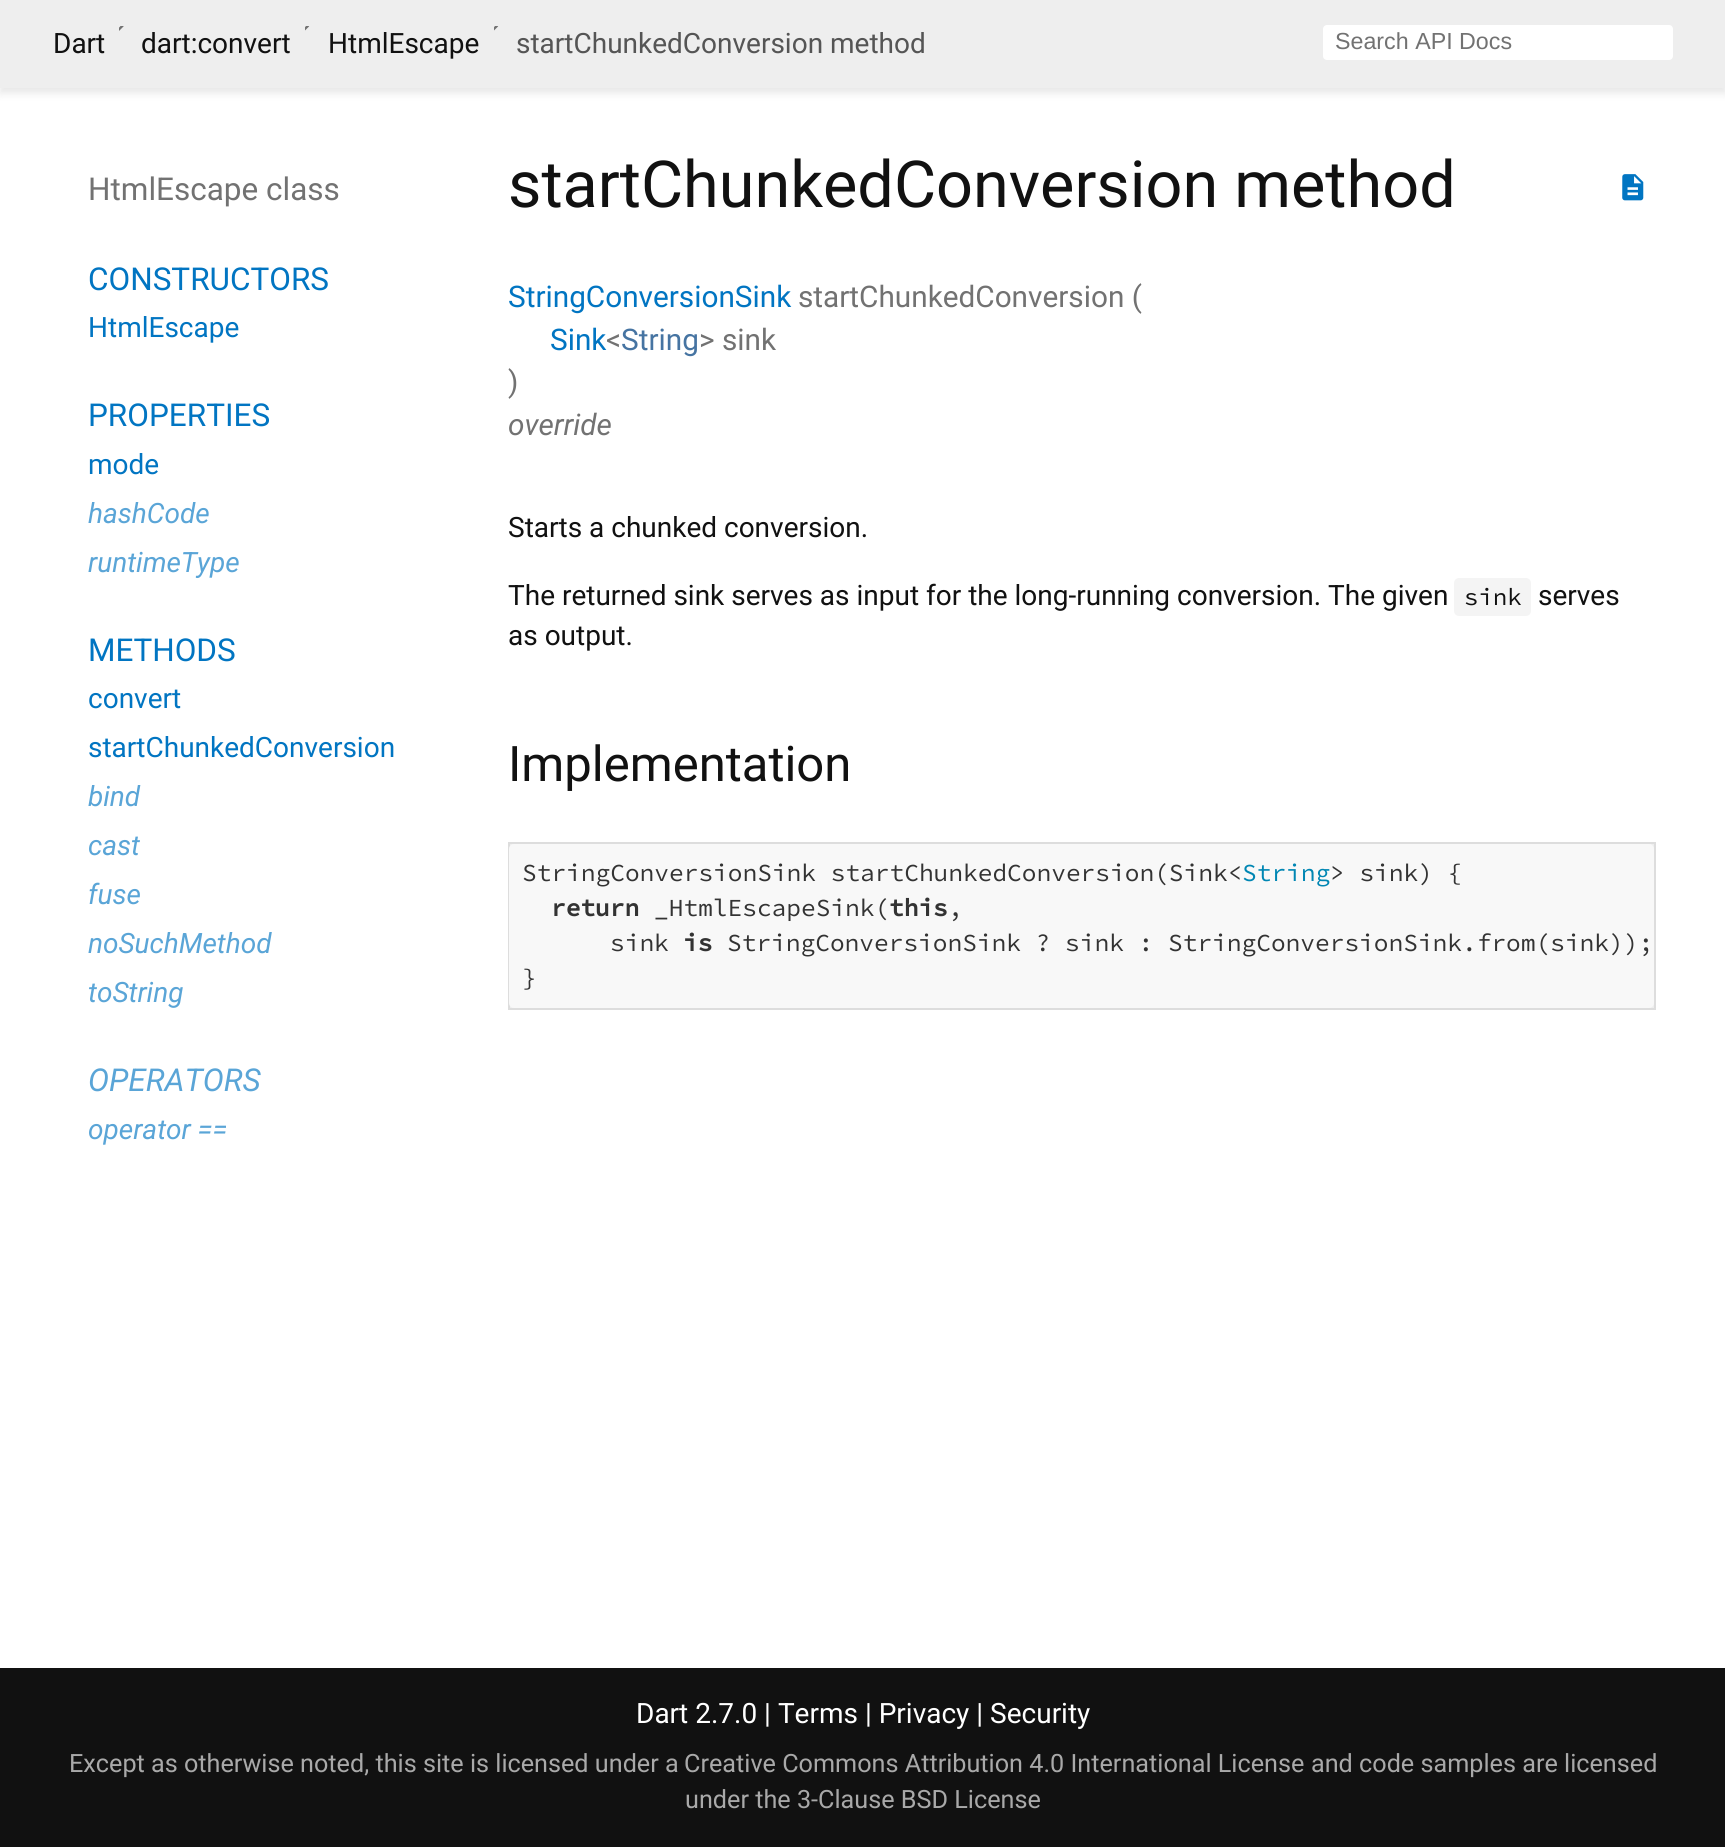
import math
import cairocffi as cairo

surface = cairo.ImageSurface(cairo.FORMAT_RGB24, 1725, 1847)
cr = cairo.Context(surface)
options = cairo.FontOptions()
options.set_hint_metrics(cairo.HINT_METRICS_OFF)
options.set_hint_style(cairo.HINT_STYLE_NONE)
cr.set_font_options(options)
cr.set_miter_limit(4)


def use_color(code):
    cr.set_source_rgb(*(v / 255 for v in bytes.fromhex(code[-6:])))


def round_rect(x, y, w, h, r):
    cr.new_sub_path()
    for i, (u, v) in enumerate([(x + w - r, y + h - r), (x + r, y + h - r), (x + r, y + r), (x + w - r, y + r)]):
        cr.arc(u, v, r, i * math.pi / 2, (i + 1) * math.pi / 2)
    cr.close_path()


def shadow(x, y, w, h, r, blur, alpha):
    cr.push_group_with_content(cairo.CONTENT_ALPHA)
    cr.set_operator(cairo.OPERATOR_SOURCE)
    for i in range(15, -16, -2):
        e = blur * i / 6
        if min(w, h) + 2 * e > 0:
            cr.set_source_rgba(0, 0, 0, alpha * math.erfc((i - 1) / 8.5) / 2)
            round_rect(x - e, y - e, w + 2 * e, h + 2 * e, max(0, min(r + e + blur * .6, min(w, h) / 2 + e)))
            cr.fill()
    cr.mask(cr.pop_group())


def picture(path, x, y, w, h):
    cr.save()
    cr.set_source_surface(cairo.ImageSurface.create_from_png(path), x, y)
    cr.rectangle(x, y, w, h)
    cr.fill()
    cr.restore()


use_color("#ffffff")
cr.paint()
use_color("#000000")
shadow(0, 5, 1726, 88, 0, 4.5, 0.1)
use_color("#eeeeee")
cr.rectangle(0, 0, 1725, 88)
cr.fill()
cr.select_font_face("Roboto")
cr.set_font_size(28)
use_color("#111111")
cr.move_to(53, 53)
cr.show_text("Dart")
picture("img1.png", 119, 26, 5, 5)
cr.move_to(141, 53)
cr.show_text("dart:convert")
picture("img2.png", 305, 26, 5, 5)
cr.move_to(328, 53)
cr.show_text("HtmlEscape")
picture("img2.png", 494, 26, 5, 5)
use_color("#555555")
cr.move_to(516, 53)
cr.show_text("startChunkedConversion method")
use_color("#ffffff")
round_rect(1323, 25, 350, 35, 4)
cr.fill()
cr.select_font_face("Liberation Sans")
cr.set_font_size(23.25)
use_color("#727272")
cr.move_to(1335, 49)
cr.show_text("Search API Docs")
cr.select_font_face("Roboto")
cr.set_font_size(31.5)
cr.move_to(88, 200)
cr.show_text("HtmlEscape class")
use_color("#0175c2")
cr.move_to(88, 290)
cr.show_text("CONSTRUCTORS")
cr.set_font_size(28)
cr.move_to(88, 337)
cr.show_text("HtmlEscape")
cr.set_font_size(31.5)
cr.move_to(88, 426)
cr.show_text("PROPERTIES")
cr.set_font_size(28)
cr.move_to(88, 474)
cr.show_text("mode")
cr.select_font_face("Roboto", cairo.FONT_SLANT_ITALIC)
use_color("#5aa5d7")
cr.move_to(88, 523)
cr.show_text("hashCode")
cr.move_to(88, 572)
cr.show_text("runtimeType")
cr.select_font_face("Roboto")
cr.set_font_size(31.5)
use_color("#0175c2")
cr.move_to(88, 661)
cr.show_text("METHODS")
cr.set_font_size(28)
cr.move_to(88, 708)
cr.show_text("convert")
cr.move_to(88, 757)
cr.show_text("startChunkedConversion")
cr.select_font_face("Roboto", cairo.FONT_SLANT_ITALIC)
use_color("#5aa5d7")
cr.move_to(88, 806)
cr.show_text("bind")
cr.move_to(88, 855)
cr.show_text("cast")
cr.move_to(88, 904)
cr.show_text("fuse")
cr.move_to(88, 953)
cr.show_text("noSuchMethod")
cr.move_to(88, 1002)
cr.show_text("toString")
cr.set_font_size(31.5)
cr.move_to(88, 1091)
cr.show_text("OPERATORS")
cr.set_font_size(28)
cr.move_to(88, 1139)
cr.show_text("operator ==")
cr.select_font_face("Roboto")
cr.set_font_size(64.75)
use_color("#111111")
cr.move_to(508, 207)
cr.show_text("startChunkedConversion method")
picture("img3.png", 1622, 174, 22, 27)
cr.set_font_size(29.75)
use_color("#0175c2")
cr.move_to(508, 307)
cr.show_text("StringConversionSink")
use_color("#727272")
cr.move_to(798, 307)
cr.show_text("startChunkedConversion (")
use_color("#0175c2")
cr.move_to(550, 350)
cr.show_text("Sink")
use_color("#727272")
cr.move_to(606, 350)
cr.show_text("<")
use_color("#4674a2")
cr.move_to(621, 350)
cr.show_text("String")
use_color("#727272")
cr.move_to(699, 350)
cr.show_text("> sink")
cr.move_to(508, 392)
cr.show_text(")")
cr.select_font_face("Roboto", cairo.FONT_SLANT_ITALIC)
cr.move_to(508, 435)
cr.show_text("override")
cr.select_font_face("Roboto")
cr.set_font_size(28)
use_color("#111111")
cr.move_to(508, 537)
cr.show_text("Starts a chunked conversion.")
cr.move_to(508, 605)
cr.show_text("The returned sink serves as input for the long-running conversion. The given")
use_color("#f4f4f4")
round_rect(1454, 578, 77, 38, 5)
cr.fill()
cr.select_font_face("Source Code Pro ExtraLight")
cr.set_font_size(24)
use_color("#111111")
cr.move_to(1464, 605)
cr.show_text("sink")
cr.select_font_face("Roboto")
cr.set_font_size(28)
cr.move_to(1538, 605)
cr.show_text("serves")
cr.move_to(508, 645)
cr.show_text("as output.")
cr.set_font_size(49)
cr.move_to(508, 781)
cr.show_text("Implementation")
use_color("#eeeeee")
cr.rectangle(509, 843, 1146, 166)
cr.fill_preserve()
use_color("#dddddd")
cr.stroke()
use_color("#f8f8f8")
round_rect(509, 844, 1145, 164, 5)
cr.fill()
cr.select_font_face("Source Code Pro ExtraLight")
cr.set_font_size(24.5)
use_color("#333333")
cr.move_to(522, 881)
cr.show_text("StringConversionSink startChunkedConversion(Sink<")
use_color("#0086b3")
cr.move_to(1242, 881)
cr.show_text("String")
use_color("#333333")
cr.move_to(1330, 881)
cr.show_text("> sink) {")
cr.select_font_face("Source Code Pro ExtraLight", cairo.FONT_SLANT_NORMAL, cairo.FONT_WEIGHT_BOLD)
cr.move_to(551, 916)
cr.show_text("return")
cr.select_font_face("Source Code Pro ExtraLight")
cr.move_to(654, 916)
cr.show_text("_HtmlEscapeSink(")
cr.select_font_face("Source Code Pro ExtraLight", cairo.FONT_SLANT_NORMAL, cairo.FONT_WEIGHT_BOLD)
cr.move_to(889, 916)
cr.show_text("this")
cr.select_font_face("Source Code Pro ExtraLight")
cr.move_to(948, 916)
cr.show_text(",")
cr.move_to(610, 951)
cr.show_text("sink")
cr.select_font_face("Source Code Pro ExtraLight", cairo.FONT_SLANT_NORMAL, cairo.FONT_WEIGHT_BOLD)
cr.move_to(683, 951)
cr.show_text("is")
cr.select_font_face("Source Code Pro ExtraLight")
cr.move_to(727, 951)
cr.show_text("StringConversionSink ? sink : StringConversionSink.from(sink));")
cr.move_to(522, 986)
cr.show_text("}")
use_color("#111111")
cr.rectangle(0, 1668, 1725, 179)
cr.fill()
cr.select_font_face("Roboto")
cr.set_font_size(28)
use_color("#ffffff")
cr.move_to(636, 1723)
cr.show_text("Dart 2.7.0 | Terms | Privacy | Security")
cr.set_font_size(25.2)
use_color("#a9a9a9")
cr.move_to(69, 1772)
cr.show_text("Except as otherwise noted, this site is licensed under a")
cr.move_to(684, 1772)
cr.show_text("Creative Commons Attribution 4.0 International License")
cr.move_to(1311, 1772)
cr.show_text("and code samples are licensed")
cr.move_to(685, 1808)
cr.show_text("under the 3-Clause BSD License")
surface.write_to_png("result.png")
